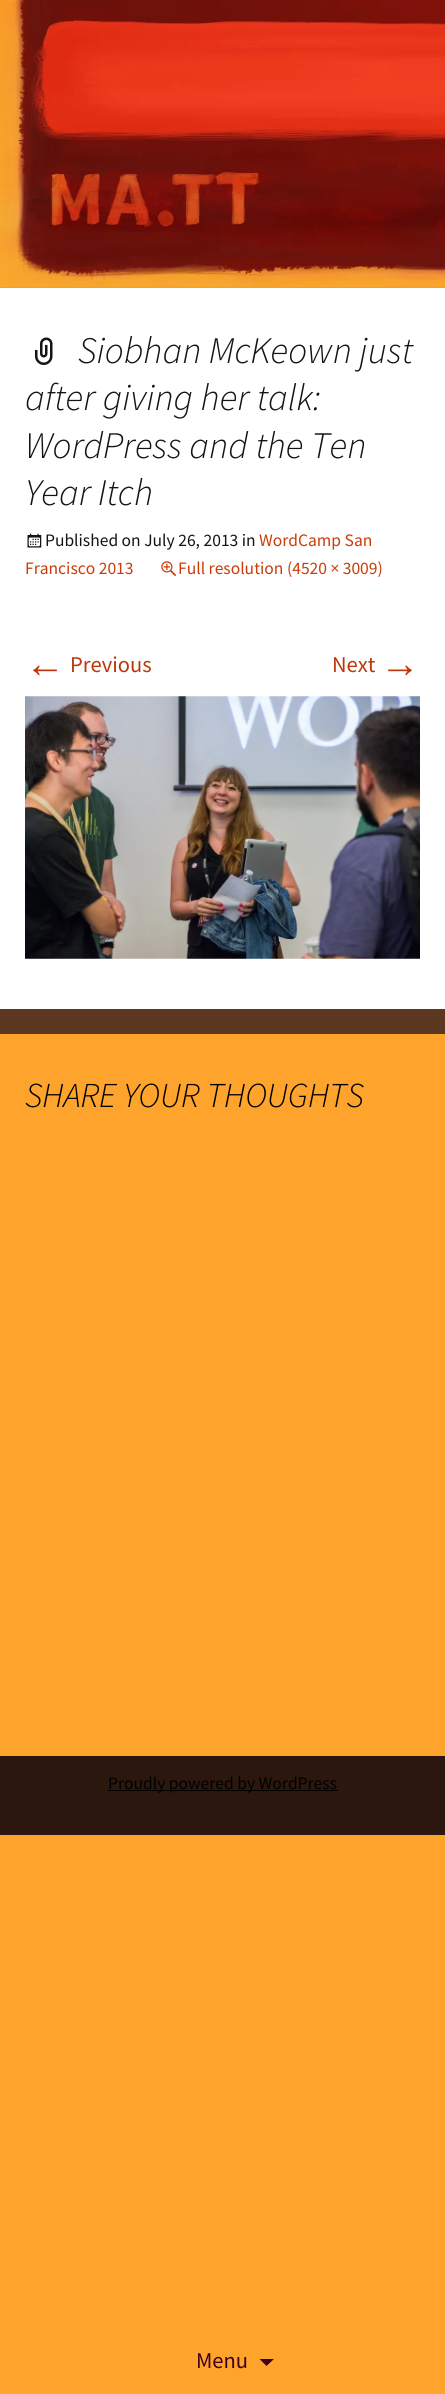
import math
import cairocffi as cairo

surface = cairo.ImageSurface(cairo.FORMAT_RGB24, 445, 2394)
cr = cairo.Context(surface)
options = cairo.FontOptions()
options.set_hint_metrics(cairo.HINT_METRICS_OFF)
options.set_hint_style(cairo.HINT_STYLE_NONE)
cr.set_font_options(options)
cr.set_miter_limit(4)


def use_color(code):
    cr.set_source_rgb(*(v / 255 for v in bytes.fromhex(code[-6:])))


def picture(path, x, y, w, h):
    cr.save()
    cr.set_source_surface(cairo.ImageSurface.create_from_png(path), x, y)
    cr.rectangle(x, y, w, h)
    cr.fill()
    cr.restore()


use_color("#fea42c")
cr.paint()
use_color("#fba006")
cr.rectangle(0, 287, 445, 1)
cr.fill()
picture("img1.png", 0, 0, 445, 288)
use_color("#5c3820")
cr.rectangle(0, 1009, 445, 25)
cr.fill()
use_color("#ffffff")
cr.rectangle(0, 288, 445, 721)
cr.fill()
picture("img2.png", 35, 337, 18, 28)
cr.select_font_face("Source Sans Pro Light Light", cairo.FONT_SLANT_ITALIC)
cr.set_font_size(37.5)
use_color("#141412")
cr.move_to(78, 363)
cr.show_text("Siobhan McKeown just")
cr.move_to(25, 410)
cr.show_text("after giving her talk:")
cr.move_to(25, 458)
cr.show_text("WordPress and the Ten")
cr.move_to(25, 505)
cr.show_text("Year Itch")
picture("img3.png", 27, 533, 15, 15)
cr.select_font_face("Source Sans Pro")
cr.set_font_size(17.5)
cr.move_to(45, 546)
cr.show_text("Published on July 26, 2013 in")
use_color("#ca3c08")
cr.move_to(259, 546)
cr.show_text("WordCamp San")
cr.move_to(25, 574)
cr.show_text("Francisco 2013")
picture("img4.png", 161, 561, 16, 16)
cr.move_to(178, 574)
cr.show_text("Full resolution (4520 × 3009)")
cr.select_font_face("Liberation Sans")
cr.set_font_size(40)
use_color("#bc360a")
cr.move_to(25, 677)
cr.show_text("←")
cr.select_font_face("Source Sans Pro")
cr.set_font_size(22.5)
cr.move_to(70, 672)
cr.show_text("Previous")
cr.move_to(332, 672)
cr.show_text("Next")
cr.select_font_face("Liberation Sans")
cr.set_font_size(40)
cr.move_to(380, 677)
cr.show_text("→")
picture("img5.png", 25, 696, 395, 263)
cr.select_font_face("Source Sans Pro Light Light", cairo.FONT_SLANT_ITALIC)
cr.set_font_size(35)
use_color("#000000")
cr.move_to(25, 1107)
cr.show_text("SHARE YOUR THOUGHTS")
use_color("#2b170e")
cr.rectangle(0, 1756, 445, 79)
cr.fill()
use_color("#000000")
cr.rectangle(108, 1790, 230, 1)
cr.fill()
cr.select_font_face("Source Sans Pro")
cr.set_font_size(17.5)
cr.move_to(108, 1789)
cr.show_text("Proudly powered by WordPress")
cr.set_font_size(22.5)
use_color("#400019")
cr.move_to(196, 2368)
cr.show_text("Menu")
cr.new_path()
cr.move_to(259.5, 2359)
cr.line_to(274, 2359)
cr.line_to(266.5, 2366)
cr.close_path()
cr.fill()
surface.write_to_png("result.png")
